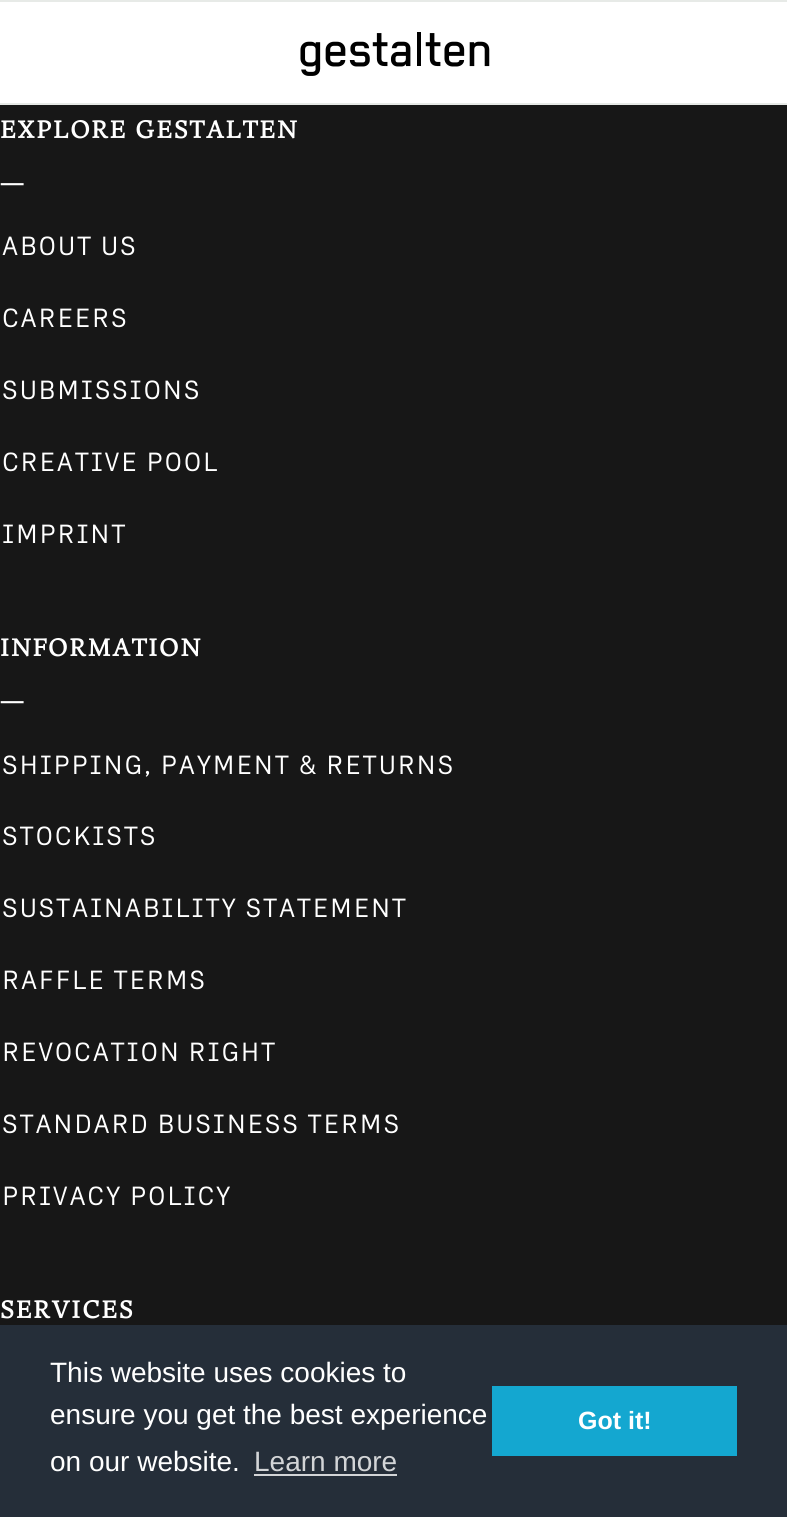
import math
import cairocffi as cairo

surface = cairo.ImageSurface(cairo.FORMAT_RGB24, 787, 1517)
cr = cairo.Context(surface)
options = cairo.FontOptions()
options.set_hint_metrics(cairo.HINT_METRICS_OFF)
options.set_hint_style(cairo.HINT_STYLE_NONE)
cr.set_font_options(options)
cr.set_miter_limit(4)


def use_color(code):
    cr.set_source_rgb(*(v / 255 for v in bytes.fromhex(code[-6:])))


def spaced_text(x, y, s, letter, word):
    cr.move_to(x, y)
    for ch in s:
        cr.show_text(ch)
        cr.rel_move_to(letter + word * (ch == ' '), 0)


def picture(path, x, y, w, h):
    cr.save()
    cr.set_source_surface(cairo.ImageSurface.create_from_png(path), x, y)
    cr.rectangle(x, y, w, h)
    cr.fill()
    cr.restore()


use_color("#171717")
cr.paint()
use_color("#ffffff")
cr.rectangle(0, 2, 787, 101)
cr.fill()
use_color("#e7eae7")
cr.rectangle(0, 0, 787, 2)
cr.fill()
cr.rectangle(0, 103, 787, 2)
cr.fill()
picture("img1.png", 300, 32, 190, 44)
cr.select_font_face("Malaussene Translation", cairo.FONT_SLANT_NORMAL, cairo.FONT_WEIGHT_BOLD)
cr.set_font_size(24.5)
use_color("#ffffff")
spaced_text(0, 138, "EXPLORE GESTALTEN", 1.75, 0)
spaced_text(0, 191, "—", 1.75, 0)
cr.select_font_face("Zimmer")
cr.set_font_size(26.25)
spaced_text(2, 255, "ABOUT US", 1.75, 0)
spaced_text(2, 327, "CAREERS", 1.75, 0)
spaced_text(2, 399, "SUBMISSIONS", 1.75, 0)
spaced_text(2, 471, "CREATIVE POOL", 1.75, 0)
spaced_text(2, 543, "IMPRINT", 1.75, 0)
cr.select_font_face("Malaussene Translation", cairo.FONT_SLANT_NORMAL, cairo.FONT_WEIGHT_BOLD)
cr.set_font_size(24.5)
spaced_text(0, 656, "INFORMATION", 1.75, 0)
spaced_text(0, 709, "—", 1.75, 0)
cr.select_font_face("Zimmer")
cr.set_font_size(26.25)
spaced_text(2, 774, "SHIPPING, PAYMENT & RETURNS", 1.75, 0)
spaced_text(2, 845, "STOCKISTS", 1.75, 0)
spaced_text(2, 917, "SUSTAINABILITY STATEMENT", 1.75, 0)
spaced_text(2, 989, "RAFFLE TERMS", 1.75, 0)
spaced_text(2, 1061, "REVOCATION RIGHT", 1.75, 0)
spaced_text(2, 1133, "STANDARD BUSINESS TERMS", 1.75, 0)
spaced_text(2, 1205, "PRIVACY POLICY", 1.75, 0)
cr.select_font_face("Malaussene Translation", cairo.FONT_SLANT_NORMAL, cairo.FONT_WEIGHT_BOLD)
cr.set_font_size(24.5)
spaced_text(0, 1318, "SERVICES", 1.75, 0)
use_color("#252e39")
cr.rectangle(0, 1325, 787, 192)
cr.fill()
cr.select_font_face("Liberation Sans")
cr.set_font_size(28)
use_color("#ffffff")
cr.move_to(50, 1382)
cr.show_text("This website uses cookies to")
cr.move_to(50, 1424)
cr.show_text("ensure you get the best experience")
cr.move_to(50, 1471)
cr.show_text("on our website.")
use_color("#d3d5d7")
cr.move_to(254, 1471)
cr.show_text("Learn more")
cr.rectangle(254, 1474, 143, 2)
cr.fill()
use_color("#14a7d0")
cr.rectangle(492, 1386, 245, 70)
cr.fill()
cr.select_font_face("Liberation Sans", cairo.FONT_SLANT_NORMAL, cairo.FONT_WEIGHT_BOLD)
cr.set_font_size(25)
use_color("#ffffff")
cr.move_to(578, 1429)
cr.show_text("Got it!")
surface.write_to_png("result.png")
